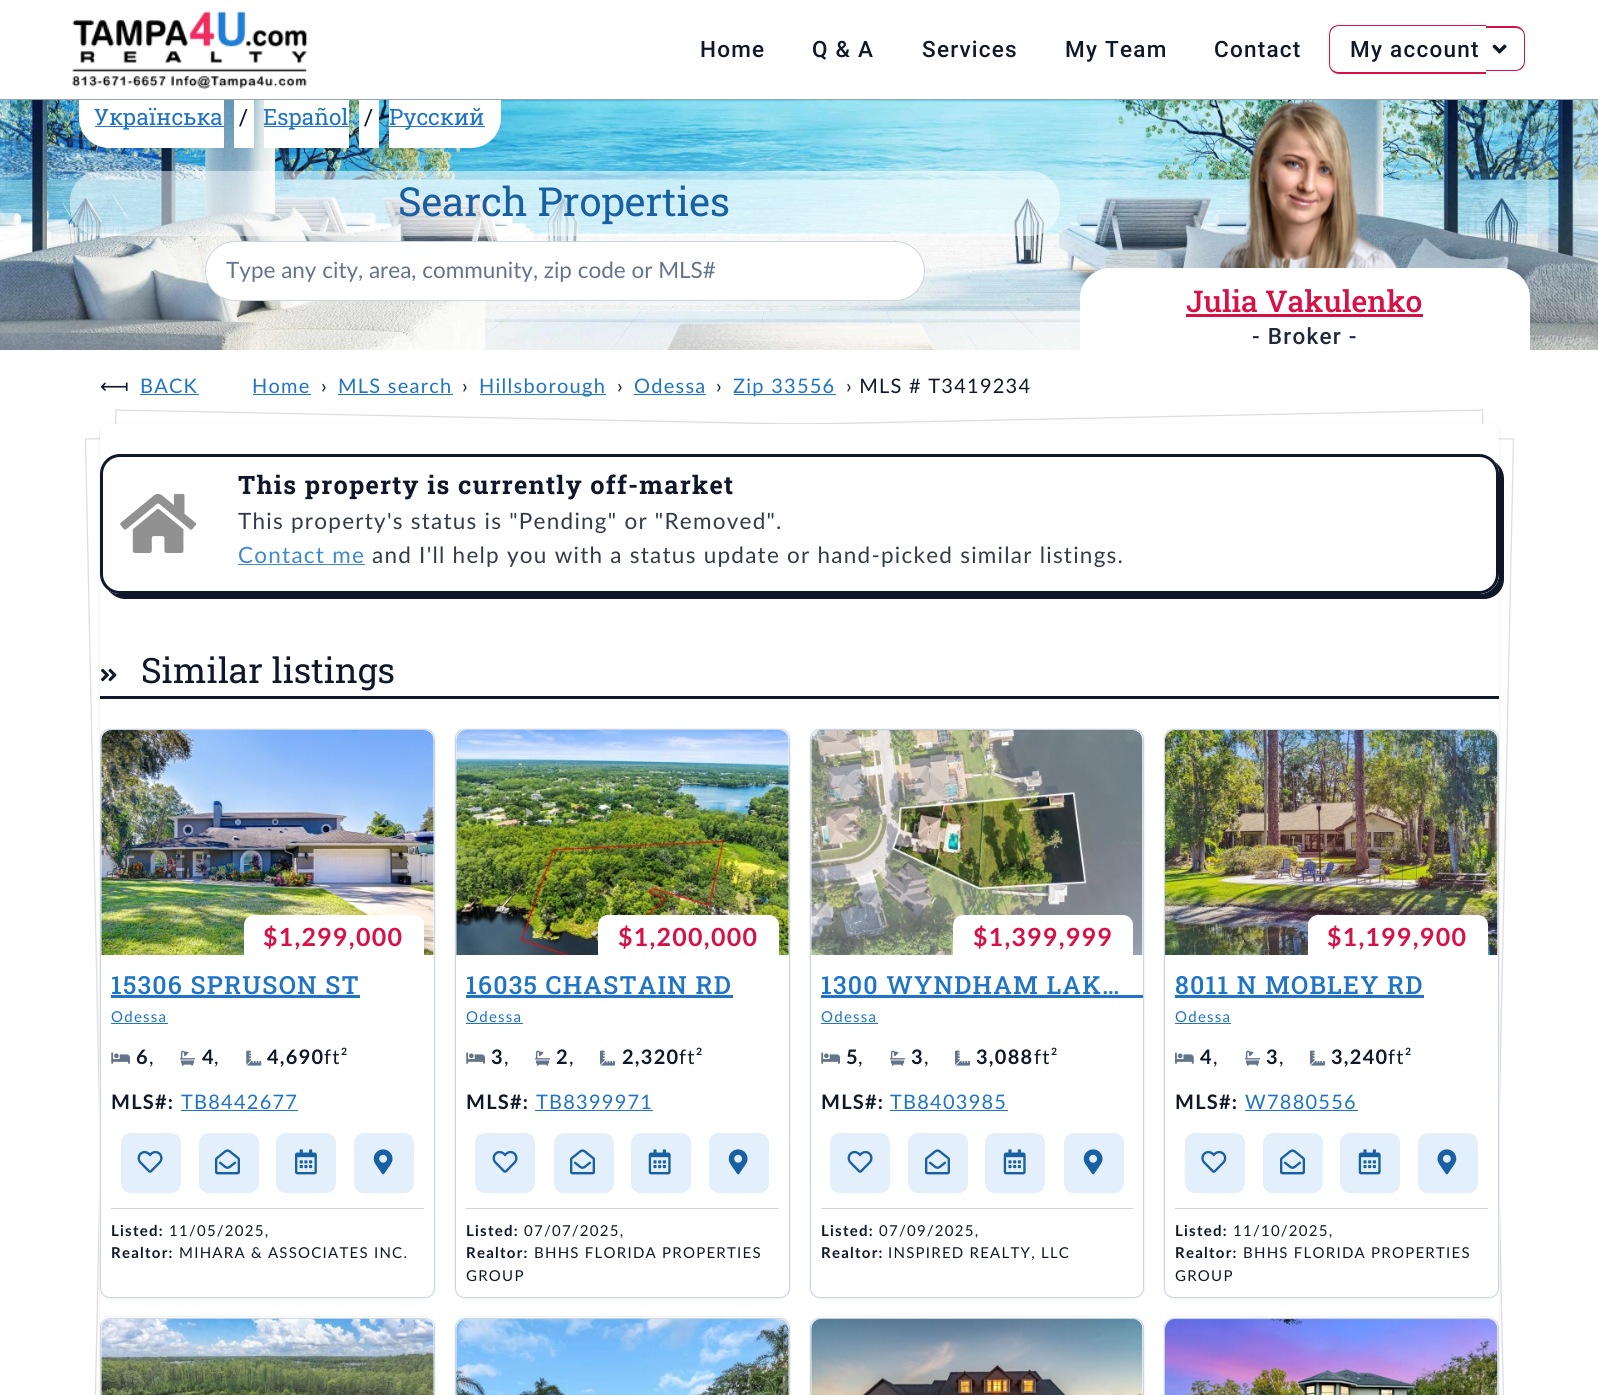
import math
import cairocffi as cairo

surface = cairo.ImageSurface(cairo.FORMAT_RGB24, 1598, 1395)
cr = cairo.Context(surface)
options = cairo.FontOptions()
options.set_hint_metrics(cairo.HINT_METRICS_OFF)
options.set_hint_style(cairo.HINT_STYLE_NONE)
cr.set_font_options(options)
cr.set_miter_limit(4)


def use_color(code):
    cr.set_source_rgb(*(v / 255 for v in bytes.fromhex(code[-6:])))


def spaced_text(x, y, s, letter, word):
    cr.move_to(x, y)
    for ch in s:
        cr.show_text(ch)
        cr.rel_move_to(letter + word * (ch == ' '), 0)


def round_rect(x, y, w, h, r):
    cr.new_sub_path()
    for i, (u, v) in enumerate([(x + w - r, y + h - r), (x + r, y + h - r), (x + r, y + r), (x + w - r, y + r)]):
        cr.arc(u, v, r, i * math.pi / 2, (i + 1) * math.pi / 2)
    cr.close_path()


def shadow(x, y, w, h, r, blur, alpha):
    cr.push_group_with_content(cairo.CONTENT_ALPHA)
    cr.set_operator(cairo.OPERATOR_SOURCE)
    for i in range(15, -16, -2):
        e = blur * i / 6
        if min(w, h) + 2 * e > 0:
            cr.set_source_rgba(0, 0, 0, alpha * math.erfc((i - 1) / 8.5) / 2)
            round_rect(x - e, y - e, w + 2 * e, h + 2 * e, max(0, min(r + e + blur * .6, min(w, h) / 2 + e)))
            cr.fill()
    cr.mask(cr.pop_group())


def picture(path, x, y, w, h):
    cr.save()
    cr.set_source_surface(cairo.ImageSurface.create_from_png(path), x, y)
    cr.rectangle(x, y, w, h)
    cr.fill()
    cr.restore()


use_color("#ffffff")
cr.paint()
use_color("#94a3b8")
cr.rectangle(0, 99, 1598, 1)
cr.fill()
picture("img1.png", 72, 11, 236, 78)
cr.select_font_face("Roboto Medium")
cr.set_font_size(22.5)
use_color("#0f172a")
spaced_text(700, 57, "Home", 1.25, 0)
spaced_text(812, 57, "Q & A", 1.25, 0)
spaced_text(922, 57, "Services", 1.25, 0)
spaced_text(1065, 57, "My Team", 1.25, 0)
spaced_text(1214, 57, "Contact", 1.25, 0)
use_color("#d71045")
cr.set_fill_rule(cairo.FILL_RULE_EVEN_ODD)
cr.new_path()
cr.move_to(1339, 25)
cr.line_to(1486, 25)
cr.line_to(1486, 74)
cr.line_to(1339, 74)
cr.curve_to(1333, 74, 1329, 69, 1329, 64)
cr.line_to(1329, 35)
cr.curve_to(1329, 29, 1333, 25, 1339, 25)
cr.close_path()
cr.move_to(1339, 26)
cr.line_to(1486, 26)
cr.line_to(1486, 72)
cr.line_to(1339, 72)
cr.curve_to(1334, 72, 1330, 69, 1330, 64)
cr.line_to(1330, 35)
cr.curve_to(1330, 30, 1334, 26, 1339, 26)
cr.close_path()
cr.fill()
cr.new_path()
cr.move_to(1486, 26)
cr.line_to(1515, 26)
cr.curve_to(1521, 26, 1525, 31, 1525, 36)
cr.line_to(1525, 61)
cr.curve_to(1525, 67, 1521, 71, 1515, 71)
cr.line_to(1486, 71)
cr.close_path()
cr.move_to(1486, 28)
cr.line_to(1515, 28)
cr.curve_to(1520, 28, 1524, 31, 1524, 36)
cr.line_to(1524, 61)
cr.curve_to(1524, 66, 1520, 70, 1515, 70)
cr.line_to(1486, 70)
cr.close_path()
cr.fill()
use_color("#0f172a")
spaced_text(1350, 57, "My account", 1.25, 0)
picture("img2.png", 1492, 44, 15, 10)
picture("img3.png", 0, 100, 1598, 250)
use_color("#ffffff")
cr.new_path()
cr.move_to(79, 100)
cr.line_to(224, 100)
cr.line_to(224, 148)
cr.line_to(109, 148)
cr.curve_to(92.5, 148, 79, 134.5, 79, 118)
cr.close_path()
cr.fill()
use_color("#1e74c5")
cr.rectangle(95, 126, 129, 1)
cr.fill()
cr.select_font_face("Roboto Slab")
cr.move_to(94, 125)
cr.show_text("Українська")
use_color("#ffffff")
cr.rectangle(234, 100, 20, 48)
cr.fill()
use_color("#0f172a")
cr.move_to(239, 125)
cr.show_text("/")
use_color("#ffffff")
cr.rectangle(264, 100, 85, 48)
cr.fill()
use_color("#1e74c5")
cr.rectangle(264, 126, 85, 1)
cr.fill()
cr.move_to(263, 125)
cr.show_text("Español")
use_color("#ffffff")
cr.rectangle(359, 100, 20, 48)
cr.fill()
use_color("#0f172a")
cr.move_to(364, 125)
cr.show_text("/")
use_color("#ffffff")
cr.new_path()
cr.move_to(389, 100)
cr.line_to(501, 100)
cr.line_to(501, 118)
cr.curve_to(501, 134.5, 487.5, 148, 471, 148)
cr.line_to(389, 148)
cr.close_path()
cr.fill()
use_color("#1e74c5")
cr.rectangle(389, 126, 96, 1)
cr.fill()
cr.move_to(389, 125)
cr.show_text("Русский")
cr.set_source_rgba(1, 1, 1, 0.5)
round_rect(70, 171, 990, 65, 30)
cr.fill()
cr.set_font_size(40)
use_color("#1960a3")
cr.move_to(398, 216)
cr.show_text("Search Properties")
use_color("#ffffff")
round_rect(205.5, 241.5, 719, 59, 29.5)
cr.fill_preserve()
use_color("#cbd5e1")
cr.set_line_width(1)
cr.stroke()
cr.select_font_face("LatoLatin")
cr.set_font_size(22.5)
use_color("#64748b")
cr.move_to(226, 278)
cr.show_text("Type any city, area, community, zip code or MLS#")
picture("img4.png", 1219, 100, 179, 168)
use_color("#ffffff")
cr.new_path()
cr.move_to(1110, 268)
cr.line_to(1500, 268)
cr.curve_to(1516.5, 268, 1530, 281.5, 1530, 298)
cr.line_to(1530, 350)
cr.line_to(1080, 350)
cr.line_to(1080, 298)
cr.curve_to(1080, 281.5, 1093.5, 268, 1110, 268)
cr.close_path()
cr.fill()
cr.select_font_face("Roboto Slab Medium")
cr.set_font_size(30)
use_color("#d71045")
cr.move_to(1186, 312)
cr.show_text("Julia Vakulenko")
cr.rectangle(1186, 314, 237, 3)
cr.fill()
cr.select_font_face("Roboto Medium")
cr.set_font_size(22.5)
use_color("#1e293b")
spaced_text(1252, 344, "- Broker -", 1.25, 0)
cr.select_font_face("DejaVu Sans")
cr.set_font_size(20)
use_color("#0f172a")
spaced_text(100, 393, "⟻", 1.25, 0)
cr.select_font_face("LatoLatin")
use_color("#1e74c5")
spaced_text(140, 393, "BACK", 1.25, 0)
cr.rectangle(140, 394, 59, 1)
cr.fill()
spaced_text(252, 393, "Home", 1.25, 0)
cr.rectangle(253, 394, 58, 1)
cr.fill()
use_color("#0f172a")
spaced_text(321, 393, "›", 1.25, 0)
use_color("#1e74c5")
spaced_text(338, 393, "MLS search", 1.25, 0)
cr.rectangle(338, 394, 115, 1)
cr.fill()
use_color("#0f172a")
spaced_text(462, 393, "›", 1.25, 0)
use_color("#1e74c5")
cr.rectangle(480, 394, 126, 1)
cr.fill()
spaced_text(479, 393, "Hillsborough", 1.25, 0)
use_color("#0f172a")
spaced_text(617, 393, "›", 1.25, 0)
use_color("#1e74c5")
spaced_text(634, 393, "Odessa", 1.25, 0)
cr.rectangle(634, 394, 72, 1)
cr.fill()
use_color("#0f172a")
spaced_text(716, 393, "›", 1.25, 0)
use_color("#1e74c5")
cr.rectangle(734, 394, 102, 1)
cr.fill()
spaced_text(733, 393, "Zip 33556", 1.25, 0)
use_color("#0f172a")
spaced_text(846, 393, "› MLS # T3419234", 1.25, 0)
cr.new_path()
cr.move_to(85.5, 439)
cr.line_to(1482.5, 410)
cr.line_to(1513.5, 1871.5)
cr.line_to(116, 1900.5)
cr.close_path()
use_color("#dedede")
cr.set_line_width(1.3)
cr.stroke()
use_color("#ffffff")
cr.set_fill_rule(cairo.FILL_RULE_WINDING)
cr.new_path()
cr.move_to(115, 409)
cr.line_to(1514, 439)
cr.line_to(1483, 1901)
cr.line_to(85, 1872)
cr.close_path()
cr.fill()
cr.new_path()
cr.move_to(116, 410)
cr.line_to(1513.5, 439)
cr.line_to(1482.5, 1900.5)
cr.line_to(85.5, 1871.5)
cr.close_path()
cr.set_source_rgba(0.133, 0.141, 0.149, 0.15)
cr.stroke()
use_color("#222426")
shadow(100, 425, 1399, 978, 5, 1, 0.15)
use_color("#ffffff")
round_rect(100, 424, 1399, 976, 5)
cr.fill()
use_color("#0f172a")
cr.new_path()
cr.move_to(108, 590)
cr.curve_to(112, 595, 118, 599, 125, 599)
cr.line_to(1484, 599)
cr.curve_to(1495, 599, 1504, 590, 1504, 579)
cr.line_to(1504, 479)
cr.curve_to(1504, 472, 1501, 466, 1495, 462)
cr.curve_to(1497, 466, 1499, 470, 1499, 474)
cr.line_to(1499, 574)
cr.curve_to(1499, 585, 1490, 594, 1479, 594)
cr.line_to(120, 594)
cr.curve_to(116, 594, 112, 592, 108, 590)
cr.close_path()
cr.fill()
use_color("#ffffff")
round_rect(100, 454, 1399, 140, 20)
cr.fill()
round_rect(101.5, 455.5, 1396, 137, 18.5)
use_color("#0f172a")
cr.set_line_width(3)
cr.stroke()
picture("img5.png", 120, 493, 76, 60)
cr.select_font_face("Roboto Slab", cairo.FONT_SLANT_NORMAL, cairo.FONT_WEIGHT_BOLD)
cr.set_font_size(25.3)
spaced_text(238, 494, "This property is currently off-market", 1.25, 0)
cr.select_font_face("LatoLatin")
cr.set_font_size(22.5)
use_color("#333a4a")
spaced_text(238, 529, "This property's status is \"Pending\" or \"Removed\".", 1.25, 0)
use_color("#4089ce")
spaced_text(238, 563, "Contact me", 1.25, 0)
cr.rectangle(238, 564, 127, 1)
cr.fill()
use_color("#333a4a")
spaced_text(372, 563, "and I'll help you with a status update or hand-picked similar listings.", 1.25, 0)
use_color("#0f172a")
cr.rectangle(100, 696, 1399, 3)
cr.fill()
picture("img6.png", 101, 668, 16, 14)
cr.select_font_face("Roboto Slab")
cr.set_font_size(35)
cr.move_to(141, 683)
cr.show_text("Similar listings")
round_rect(99.5, 728.5, 336, 570, 10.5)
use_color("#f1f5f9")
cr.set_line_width(1)
cr.stroke()
round_rect(100.5, 729.5, 334, 568, 9.5)
use_color("#cbd5e1")
cr.stroke()
use_color("#f8fafc")
round_rect(101, 730, 333, 225, 10)
cr.fill()
picture("img7.png", 101, 730, 333, 225)
use_color("#ffffff")
cr.new_path()
cr.move_to(254, 915)
cr.line_to(414, 915)
cr.curve_to(419.5, 915, 424, 919.5, 424, 925)
cr.line_to(424, 955)
cr.line_to(244, 955)
cr.line_to(244, 925)
cr.curve_to(244, 919.5, 248.5, 915, 254, 915)
cr.close_path()
cr.fill()
cr.select_font_face("LatoLatin", cairo.FONT_SLANT_NORMAL, cairo.FONT_WEIGHT_BOLD)
cr.set_font_size(25)
use_color("#d71045")
spaced_text(263, 946, "$1,299,000", 1.25, 0)
cr.select_font_face("Roboto Slab Medium")
use_color("#1e74c5")
spaced_text(111, 994, "15306 SPRUSON ST", 1.25, 0)
cr.rectangle(111, 995, 249, 3)
cr.fill()
cr.select_font_face("LatoLatin")
cr.set_font_size(15)
spaced_text(111, 1022, "Odessa", 1.25, 0)
cr.rectangle(111, 1023, 57, 1)
cr.fill()
picture("img8.png", 111, 1052, 19, 12)
cr.select_font_face("LatoLatin", cairo.FONT_SLANT_NORMAL, cairo.FONT_WEIGHT_BOLD)
cr.set_font_size(20)
use_color("#0f172a")
spaced_text(136, 1064, "6", 1.25, 0)
cr.select_font_face("LatoLatin")
spaced_text(149, 1064, ",", 1.25, 0)
picture("img9.png", 180, 1050, 15, 16)
cr.select_font_face("LatoLatin", cairo.FONT_SLANT_NORMAL, cairo.FONT_WEIGHT_BOLD)
spaced_text(202, 1064, "4", 1.25, 0)
cr.select_font_face("LatoLatin")
spaced_text(214, 1064, ",", 1.25, 0)
picture("img10.png", 246, 1050, 16, 16)
cr.select_font_face("LatoLatin", cairo.FONT_SLANT_NORMAL, cairo.FONT_WEIGHT_BOLD)
spaced_text(267, 1064, "4,690", 1.25, 0)
cr.select_font_face("LatoLatin")
spaced_text(324, 1064, "ft²", 1.25, 0)
cr.select_font_face("LatoLatin", cairo.FONT_SLANT_NORMAL, cairo.FONT_WEIGHT_BOLD)
spaced_text(111, 1109, "MLS#:", 1.25, 0)
cr.select_font_face("LatoLatin")
use_color("#1e74c5")
spaced_text(181, 1109, "TB8442677", 1.25, 0)
cr.rectangle(181, 1110, 117, 1)
cr.fill()
use_color("#e3effa")
round_rect(121, 1133, 60, 60, 10)
cr.fill()
picture("img11.png", 137, 1150, 26, 23)
round_rect(199, 1133, 60, 60, 10)
cr.fill()
picture("img12.png", 215, 1149, 25, 26)
round_rect(276, 1133, 60, 60, 10)
cr.fill()
picture("img13.png", 295, 1149, 22, 26)
round_rect(354, 1133, 60, 60, 10)
cr.fill()
picture("img14.png", 373, 1149, 20, 26)
use_color("#cbd5e1")
cr.rectangle(111, 1208, 313, 1)
cr.fill()
cr.select_font_face("LatoLatin", cairo.FONT_SLANT_NORMAL, cairo.FONT_WEIGHT_BOLD)
cr.set_font_size(15)
use_color("#0f172a")
spaced_text(111, 1236, "Listed:", 1.25, 0)
cr.select_font_face("LatoLatin")
spaced_text(169, 1236, "11/05/2025,", 1.25, 0)
cr.select_font_face("LatoLatin", cairo.FONT_SLANT_NORMAL, cairo.FONT_WEIGHT_BOLD)
spaced_text(111, 1258, "Realtor:", 1.25, 0)
cr.select_font_face("LatoLatin")
spaced_text(179, 1258, "MIHARA & ASSOCIATES INC.", 1.25, 0)
round_rect(454.5, 728.5, 336, 570, 10.5)
use_color("#f1f5f9")
cr.stroke()
round_rect(455.5, 729.5, 334, 568, 9.5)
use_color("#cbd5e1")
cr.stroke()
use_color("#f8fafc")
round_rect(456, 730, 333, 225, 10)
cr.fill()
picture("img15.png", 456, 730, 333, 225)
use_color("#ffffff")
cr.new_path()
cr.move_to(608, 915)
cr.line_to(769, 915)
cr.curve_to(774.5, 915, 779, 919.5, 779, 925)
cr.line_to(779, 955)
cr.line_to(598, 955)
cr.line_to(598, 925)
cr.curve_to(598, 919.5, 602.5, 915, 608, 915)
cr.close_path()
cr.fill()
cr.select_font_face("LatoLatin", cairo.FONT_SLANT_NORMAL, cairo.FONT_WEIGHT_BOLD)
cr.set_font_size(25)
use_color("#d71045")
spaced_text(618, 946, "$1,200,000", 1.25, 0)
cr.select_font_face("Roboto Slab Medium")
use_color("#1e74c5")
spaced_text(466, 994, "16035 CHASTAIN RD", 1.25, 0)
cr.rectangle(466, 995, 267, 3)
cr.fill()
cr.select_font_face("LatoLatin")
cr.set_font_size(15)
spaced_text(466, 1022, "Odessa", 1.25, 0)
cr.rectangle(466, 1023, 57, 1)
cr.fill()
picture("img8.png", 466, 1052, 19, 12)
cr.select_font_face("LatoLatin", cairo.FONT_SLANT_NORMAL, cairo.FONT_WEIGHT_BOLD)
cr.set_font_size(20)
use_color("#0f172a")
spaced_text(491, 1064, "3", 1.25, 0)
cr.select_font_face("LatoLatin")
spaced_text(504, 1064, ",", 1.25, 0)
picture("img9.png", 535, 1050, 15, 16)
cr.select_font_face("LatoLatin", cairo.FONT_SLANT_NORMAL, cairo.FONT_WEIGHT_BOLD)
spaced_text(556, 1064, "2", 1.25, 0)
cr.select_font_face("LatoLatin")
spaced_text(569, 1064, ",", 1.25, 0)
picture("img16.png", 600, 1050, 15, 16)
cr.select_font_face("LatoLatin", cairo.FONT_SLANT_NORMAL, cairo.FONT_WEIGHT_BOLD)
spaced_text(622, 1064, "2,320", 1.25, 0)
cr.select_font_face("LatoLatin")
spaced_text(679, 1064, "ft²", 1.25, 0)
cr.select_font_face("LatoLatin", cairo.FONT_SLANT_NORMAL, cairo.FONT_WEIGHT_BOLD)
spaced_text(466, 1109, "MLS#:", 1.25, 0)
cr.select_font_face("LatoLatin")
use_color("#1e74c5")
spaced_text(536, 1109, "TB8399971", 1.25, 0)
cr.rectangle(535, 1110, 118, 1)
cr.fill()
use_color("#e3effa")
round_rect(475, 1133, 60, 60, 10)
cr.fill()
picture("img11.png", 492, 1150, 26, 23)
round_rect(554, 1133, 60, 60, 10)
cr.fill()
picture("img12.png", 570, 1149, 25, 26)
round_rect(631, 1133, 60, 60, 10)
cr.fill()
picture("img17.png", 648, 1149, 23, 26)
round_rect(709, 1133, 60, 60, 10)
cr.fill()
picture("img14.png", 728, 1149, 20, 26)
use_color("#cbd5e1")
cr.rectangle(466, 1208, 313, 1)
cr.fill()
cr.select_font_face("LatoLatin", cairo.FONT_SLANT_NORMAL, cairo.FONT_WEIGHT_BOLD)
cr.set_font_size(15)
use_color("#0f172a")
spaced_text(466, 1236, "Listed:", 1.25, 0)
cr.select_font_face("LatoLatin")
spaced_text(524, 1236, "07/07/2025,", 1.25, 0)
cr.select_font_face("LatoLatin", cairo.FONT_SLANT_NORMAL, cairo.FONT_WEIGHT_BOLD)
spaced_text(466, 1258, "Realtor:", 1.25, 0)
cr.select_font_face("LatoLatin")
spaced_text(534, 1258, "BHHS FLORIDA PROPERTIES", 1.25, 0)
spaced_text(466, 1281, "GROUP", 1.25, 0)
round_rect(809.5, 728.5, 335, 570, 10.5)
use_color("#f1f5f9")
cr.stroke()
round_rect(810.5, 729.5, 333, 568, 9.5)
use_color("#cbd5e1")
cr.stroke()
use_color("#f8fafc")
round_rect(811, 730, 332, 225, 10)
cr.fill()
picture("img18.png", 811, 730, 332, 225)
use_color("#ffffff")
cr.new_path()
cr.move_to(963, 915)
cr.line_to(1123, 915)
cr.curve_to(1128.5, 915, 1133, 919.5, 1133, 925)
cr.line_to(1133, 955)
cr.line_to(953, 955)
cr.line_to(953, 925)
cr.curve_to(953, 919.5, 957.5, 915, 963, 915)
cr.close_path()
cr.fill()
cr.select_font_face("LatoLatin", cairo.FONT_SLANT_NORMAL, cairo.FONT_WEIGHT_BOLD)
cr.set_font_size(25)
use_color("#d71045")
spaced_text(973, 946, "$1,399,999", 1.25, 0)
cr.select_font_face("Roboto Slab Medium")
use_color("#1e74c5")
spaced_text(821, 994, "1300 WYNDHAM LAK…", 1.25, 0)
cr.rectangle(821, 995, 322, 3)
cr.fill()
cr.select_font_face("LatoLatin")
cr.set_font_size(15)
spaced_text(821, 1022, "Odessa", 1.25, 0)
cr.rectangle(821, 1023, 57, 1)
cr.fill()
picture("img8.png", 821, 1052, 19, 12)
cr.select_font_face("LatoLatin", cairo.FONT_SLANT_NORMAL, cairo.FONT_WEIGHT_BOLD)
cr.set_font_size(20)
use_color("#0f172a")
spaced_text(846, 1064, "5", 1.25, 0)
cr.select_font_face("LatoLatin")
spaced_text(858, 1064, ",", 1.25, 0)
picture("img9.png", 890, 1050, 15, 16)
cr.select_font_face("LatoLatin", cairo.FONT_SLANT_NORMAL, cairo.FONT_WEIGHT_BOLD)
spaced_text(911, 1064, "3", 1.25, 0)
cr.select_font_face("LatoLatin")
spaced_text(924, 1064, ",", 1.25, 0)
picture("img16.png", 955, 1050, 15, 16)
cr.select_font_face("LatoLatin", cairo.FONT_SLANT_NORMAL, cairo.FONT_WEIGHT_BOLD)
spaced_text(976, 1064, "3,088", 1.25, 0)
cr.select_font_face("LatoLatin")
spaced_text(1034, 1064, "ft²", 1.25, 0)
cr.select_font_face("LatoLatin", cairo.FONT_SLANT_NORMAL, cairo.FONT_WEIGHT_BOLD)
spaced_text(821, 1109, "MLS#:", 1.25, 0)
cr.select_font_face("LatoLatin")
use_color("#1e74c5")
spaced_text(890, 1109, "TB8403985", 1.25, 0)
cr.rectangle(890, 1110, 118, 1)
cr.fill()
use_color("#e3effa")
round_rect(830, 1133, 60, 60, 10)
cr.fill()
picture("img11.png", 847, 1150, 26, 23)
round_rect(908, 1133, 60, 60, 10)
cr.fill()
picture("img12.png", 925, 1149, 25, 26)
round_rect(985, 1133, 60, 60, 10)
cr.fill()
picture("img17.png", 1003, 1149, 23, 26)
round_rect(1064, 1133, 60, 60, 10)
cr.fill()
picture("img14.png", 1083, 1149, 20, 26)
use_color("#cbd5e1")
cr.rectangle(821, 1208, 312, 1)
cr.fill()
cr.select_font_face("LatoLatin", cairo.FONT_SLANT_NORMAL, cairo.FONT_WEIGHT_BOLD)
cr.set_font_size(15)
use_color("#0f172a")
spaced_text(821, 1236, "Listed:", 1.25, 0)
cr.select_font_face("LatoLatin")
spaced_text(879, 1236, "07/09/2025,", 1.25, 0)
cr.select_font_face("LatoLatin", cairo.FONT_SLANT_NORMAL, cairo.FONT_WEIGHT_BOLD)
spaced_text(821, 1258, "Realtor:", 1.25, 0)
cr.select_font_face("LatoLatin")
spaced_text(888, 1258, "INSPIRED REALTY, LLC", 1.25, 0)
round_rect(1163.5, 728.5, 336, 570, 10.5)
use_color("#f1f5f9")
cr.stroke()
round_rect(1164.5, 729.5, 334, 568, 9.5)
use_color("#cbd5e1")
cr.stroke()
use_color("#f8fafc")
round_rect(1165, 730, 333, 225, 10)
cr.fill()
picture("img19.png", 1165, 730, 333, 225)
use_color("#ffffff")
cr.new_path()
cr.move_to(1318, 915)
cr.line_to(1478, 915)
cr.curve_to(1483.5, 915, 1488, 919.5, 1488, 925)
cr.line_to(1488, 955)
cr.line_to(1308, 955)
cr.line_to(1308, 925)
cr.curve_to(1308, 919.5, 1312.5, 915, 1318, 915)
cr.close_path()
cr.fill()
cr.select_font_face("LatoLatin", cairo.FONT_SLANT_NORMAL, cairo.FONT_WEIGHT_BOLD)
cr.set_font_size(25)
use_color("#d71045")
spaced_text(1327, 946, "$1,199,900", 1.25, 0)
cr.select_font_face("Roboto Slab Medium")
use_color("#1e74c5")
spaced_text(1175, 994, "8011 N MOBLEY RD", 1.25, 0)
cr.rectangle(1175, 995, 249, 3)
cr.fill()
cr.select_font_face("LatoLatin")
cr.set_font_size(15)
spaced_text(1175, 1022, "Odessa", 1.25, 0)
cr.rectangle(1175, 1023, 56, 1)
cr.fill()
picture("img20.png", 1175, 1052, 19, 12)
cr.select_font_face("LatoLatin", cairo.FONT_SLANT_NORMAL, cairo.FONT_WEIGHT_BOLD)
cr.set_font_size(20)
use_color("#0f172a")
spaced_text(1200, 1064, "4", 1.25, 0)
cr.select_font_face("LatoLatin")
spaced_text(1213, 1064, ",", 1.25, 0)
picture("img9.png", 1245, 1050, 15, 16)
cr.select_font_face("LatoLatin", cairo.FONT_SLANT_NORMAL, cairo.FONT_WEIGHT_BOLD)
spaced_text(1266, 1064, "3", 1.25, 0)
cr.select_font_face("LatoLatin")
spaced_text(1279, 1064, ",", 1.25, 0)
picture("img16.png", 1310, 1050, 15, 16)
cr.select_font_face("LatoLatin", cairo.FONT_SLANT_NORMAL, cairo.FONT_WEIGHT_BOLD)
spaced_text(1331, 1064, "3,240", 1.25, 0)
cr.select_font_face("LatoLatin")
spaced_text(1388, 1064, "ft²", 1.25, 0)
cr.select_font_face("LatoLatin", cairo.FONT_SLANT_NORMAL, cairo.FONT_WEIGHT_BOLD)
spaced_text(1175, 1109, "MLS#:", 1.25, 0)
cr.select_font_face("LatoLatin")
use_color("#1e74c5")
spaced_text(1245, 1109, "W7880556", 1.25, 0)
cr.rectangle(1245, 1110, 113, 1)
cr.fill()
use_color("#e3effa")
round_rect(1185, 1133, 60, 60, 10)
cr.fill()
picture("img21.png", 1201, 1150, 26, 23)
round_rect(1263, 1133, 60, 60, 10)
cr.fill()
picture("img12.png", 1280, 1149, 25, 26)
round_rect(1340, 1133, 60, 60, 10)
cr.fill()
picture("img17.png", 1358, 1149, 23, 26)
round_rect(1418, 1133, 60, 60, 10)
cr.fill()
picture("img22.png", 1437, 1149, 20, 26)
use_color("#cbd5e1")
cr.rectangle(1175, 1208, 313, 1)
cr.fill()
cr.select_font_face("LatoLatin", cairo.FONT_SLANT_NORMAL, cairo.FONT_WEIGHT_BOLD)
cr.set_font_size(15)
use_color("#0f172a")
spaced_text(1175, 1236, "Listed:", 1.25, 0)
cr.select_font_face("LatoLatin")
spaced_text(1233, 1236, "11/10/2025,", 1.25, 0)
cr.select_font_face("LatoLatin", cairo.FONT_SLANT_NORMAL, cairo.FONT_WEIGHT_BOLD)
spaced_text(1175, 1258, "Realtor:", 1.25, 0)
cr.select_font_face("LatoLatin")
spaced_text(1243, 1258, "BHHS FLORIDA PROPERTIES", 1.25, 0)
spaced_text(1175, 1281, "GROUP", 1.25, 0)
round_rect(99.5, 1316.5, 336, 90, 10.5)
use_color("#f1f5f9")
cr.stroke()
round_rect(100.5, 1318.5, 334, 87, 9.5)
use_color("#cbd5e1")
cr.stroke()
use_color("#f8fafc")
round_rect(101, 1319, 333, 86, 10)
cr.fill()
picture("img23.png", 101, 1318, 333, 77)
round_rect(454.5, 1316.5, 336, 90, 10.5)
use_color("#f1f5f9")
cr.stroke()
round_rect(455.5, 1318.5, 334, 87, 9.5)
use_color("#cbd5e1")
cr.stroke()
use_color("#f8fafc")
round_rect(456, 1319, 333, 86, 10)
cr.fill()
picture("img24.png", 456, 1318, 333, 77)
round_rect(809.5, 1316.5, 335, 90, 10.5)
use_color("#f1f5f9")
cr.stroke()
round_rect(810.5, 1318.5, 333, 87, 9.5)
use_color("#cbd5e1")
cr.stroke()
use_color("#f8fafc")
round_rect(811, 1319, 332, 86, 10)
cr.fill()
picture("img25.png", 811, 1318, 332, 77)
round_rect(1163.5, 1316.5, 336, 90, 10.5)
use_color("#f1f5f9")
cr.stroke()
round_rect(1164.5, 1318.5, 334, 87, 9.5)
use_color("#cbd5e1")
cr.stroke()
use_color("#f8fafc")
round_rect(1165, 1319, 333, 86, 10)
cr.fill()
picture("img26.png", 1165, 1318, 333, 77)
surface.write_to_png("result.png")
